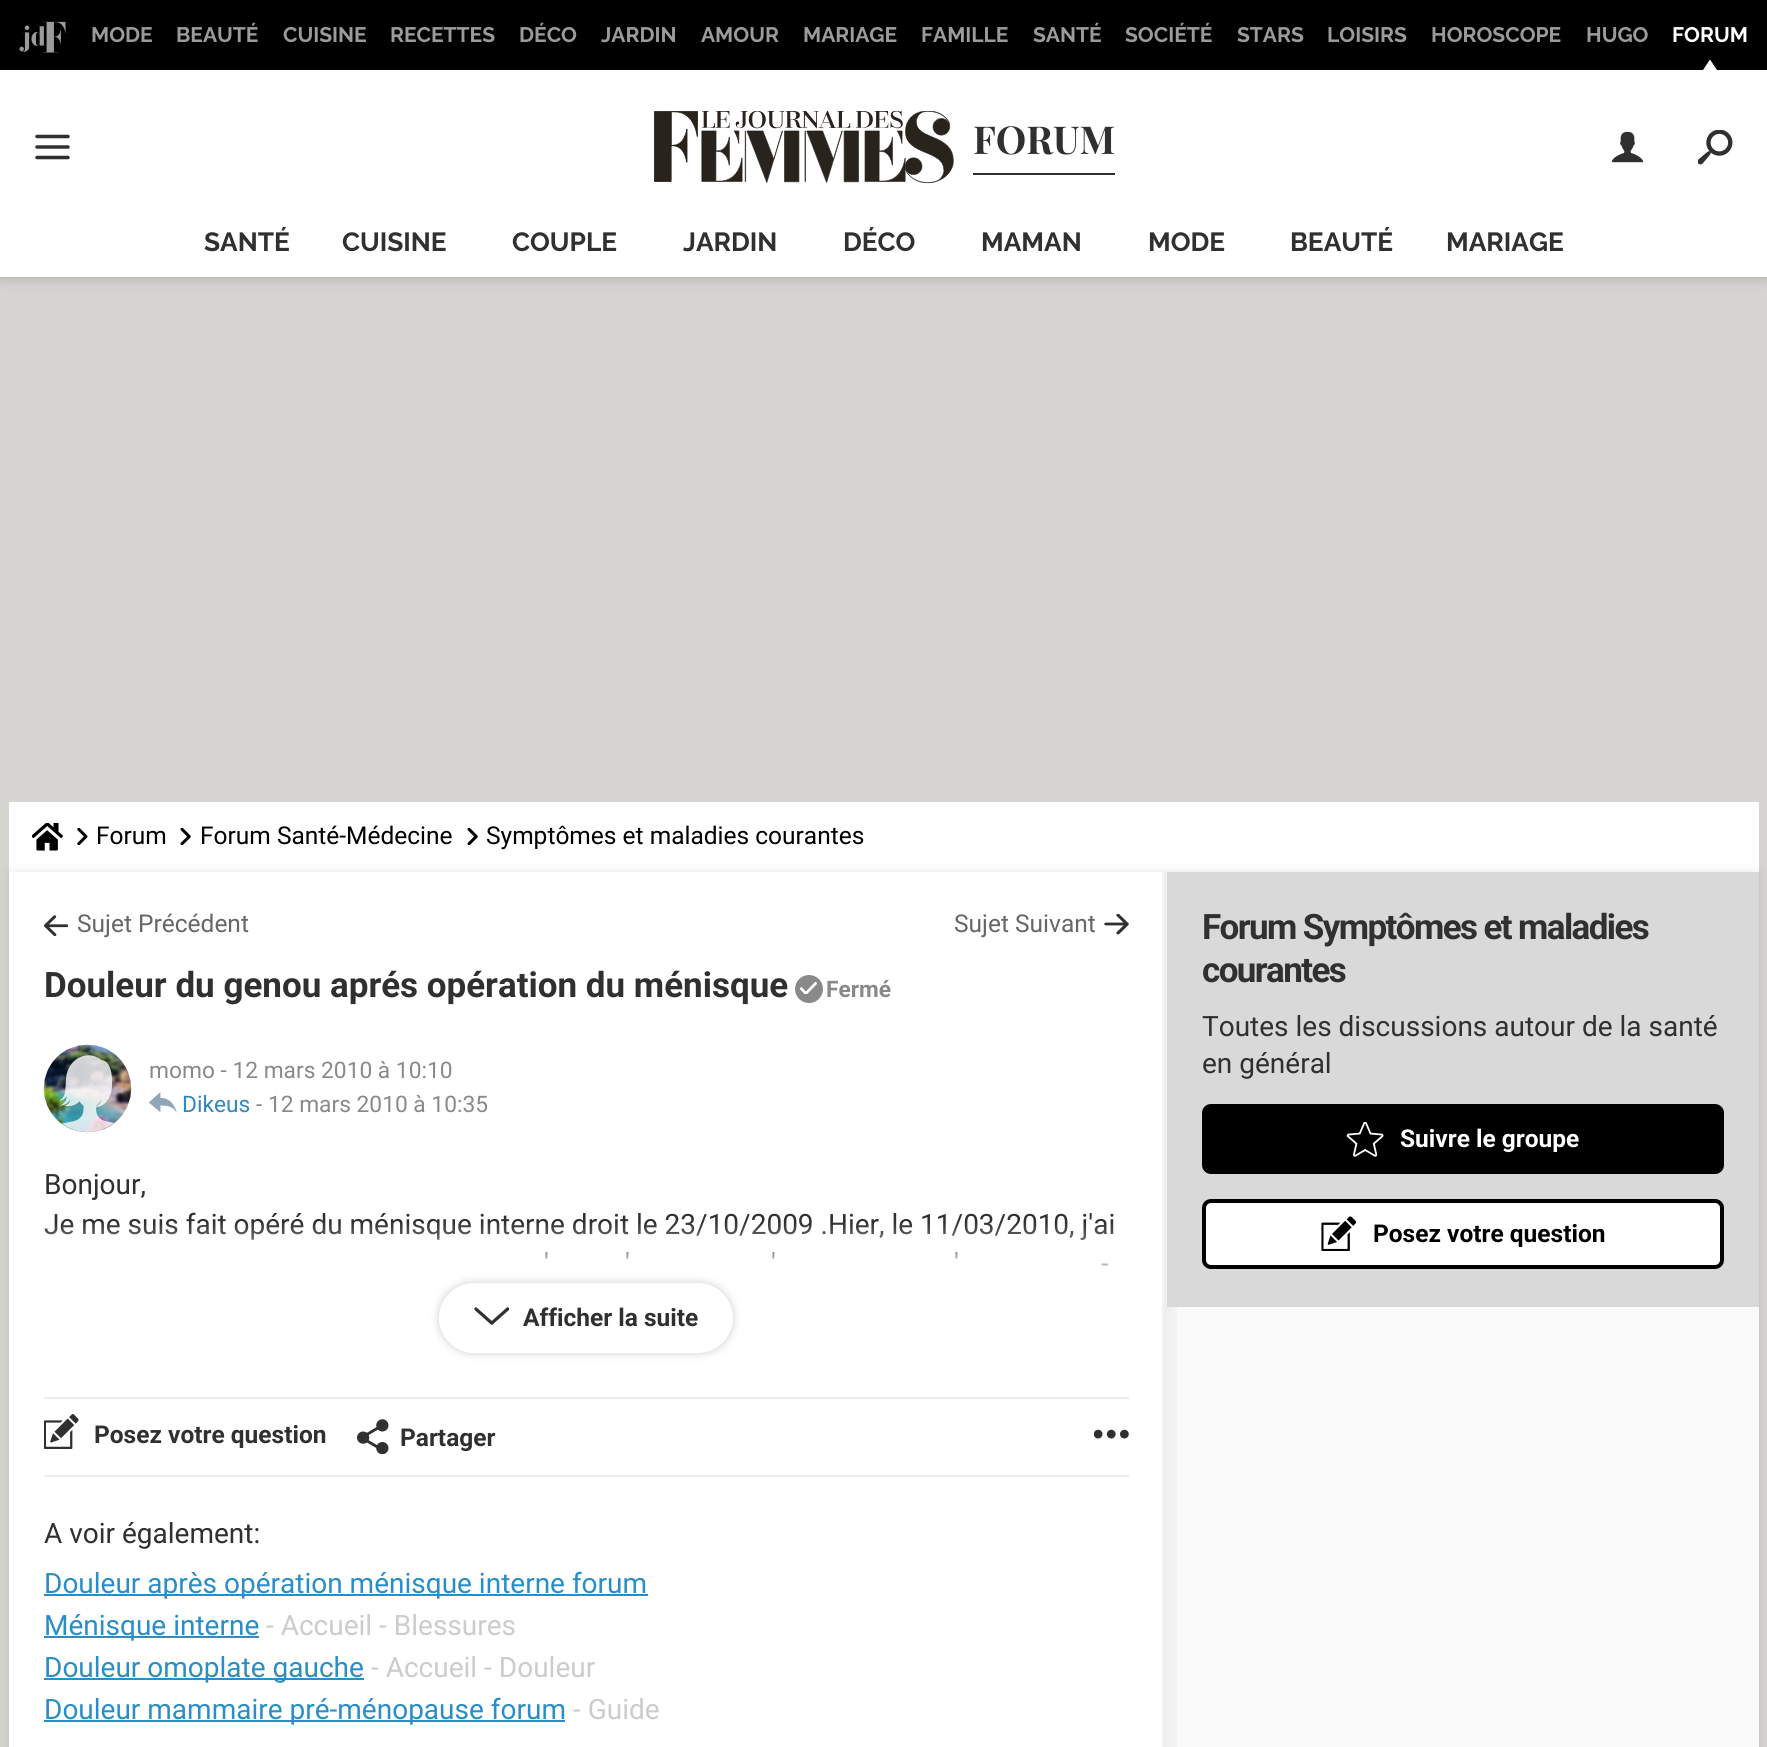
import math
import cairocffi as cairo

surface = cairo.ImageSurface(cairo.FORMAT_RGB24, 1767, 1747)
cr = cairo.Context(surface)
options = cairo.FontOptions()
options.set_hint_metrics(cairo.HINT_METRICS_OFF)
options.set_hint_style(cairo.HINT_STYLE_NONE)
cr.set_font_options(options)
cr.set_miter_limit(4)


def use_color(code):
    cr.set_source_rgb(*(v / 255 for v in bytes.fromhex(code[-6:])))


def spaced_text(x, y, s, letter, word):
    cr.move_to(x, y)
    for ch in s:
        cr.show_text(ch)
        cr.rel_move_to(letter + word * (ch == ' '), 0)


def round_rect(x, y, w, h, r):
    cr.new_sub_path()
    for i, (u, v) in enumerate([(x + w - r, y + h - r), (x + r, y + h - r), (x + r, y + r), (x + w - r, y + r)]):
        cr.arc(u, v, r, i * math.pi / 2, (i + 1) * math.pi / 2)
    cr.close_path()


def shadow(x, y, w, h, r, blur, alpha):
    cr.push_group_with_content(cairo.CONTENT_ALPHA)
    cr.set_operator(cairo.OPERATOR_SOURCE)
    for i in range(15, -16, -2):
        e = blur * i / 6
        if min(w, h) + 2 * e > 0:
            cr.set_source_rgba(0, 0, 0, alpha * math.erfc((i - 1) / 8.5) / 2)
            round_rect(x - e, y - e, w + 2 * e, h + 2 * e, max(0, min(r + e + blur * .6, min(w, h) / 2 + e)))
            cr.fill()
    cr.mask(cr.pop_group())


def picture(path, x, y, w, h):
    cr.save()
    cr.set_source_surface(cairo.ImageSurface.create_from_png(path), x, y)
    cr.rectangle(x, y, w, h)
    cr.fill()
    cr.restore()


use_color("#d5d4d0")
cr.paint()
use_color("#000000")
shadow(0, 0, 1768, 277, 0, 7, 0.2)
use_color("#ffffff")
cr.rectangle(0, 70, 1767, 207)
cr.fill()
use_color("#000000")
cr.rectangle(0, 0, 1767, 70)
cr.fill()
picture("img1.png", 19, 21, 47, 32)
cr.select_font_face("Raleway", cairo.FONT_SLANT_NORMAL, cairo.FONT_WEIGHT_BOLD)
cr.set_font_size(21)
use_color("#9b9b9b")
cr.move_to(91, 42)
cr.show_text("MODE")
cr.move_to(176, 42)
cr.show_text("BEAUTÉ")
cr.move_to(283, 42)
cr.show_text("CUISINE")
cr.move_to(390, 42)
cr.show_text("RECETTES")
cr.move_to(519, 42)
cr.show_text("DÉCO")
cr.move_to(601, 42)
cr.show_text("JARDIN")
cr.move_to(701, 42)
cr.show_text("AMOUR")
cr.move_to(803, 42)
cr.show_text("MARIAGE")
cr.move_to(921, 42)
cr.show_text("FAMILLE")
cr.move_to(1033, 42)
cr.show_text("SANTÉ")
cr.move_to(1125, 42)
cr.show_text("SOCIÉTÉ")
cr.move_to(1237, 42)
cr.show_text("STARS")
cr.move_to(1327, 42)
cr.show_text("LOISIRS")
cr.move_to(1431, 42)
cr.show_text("HOROSCOPE")
cr.move_to(1586, 42)
cr.show_text("HUGO")
use_color("#ffffff")
cr.move_to(1672, 42)
cr.show_text("FORUM")
cr.new_path()
cr.move_to(1717, 70)
cr.line_to(1703, 70)
cr.line_to(1710, 59.5)
cr.close_path()
cr.fill()
cr.new_path()
cr.move_to(37, 147)
cr.line_to(68, 147)
cr.move_to(37, 136.5)
cr.line_to(68, 136.5)
cr.move_to(37, 157.5)
cr.line_to(68, 157.5)
use_color("#303030")
cr.set_line_width(3.5)
cr.set_line_cap(cairo.LINE_CAP_ROUND)
cr.stroke()
picture("img2.png", 654, 111, 300, 73)
cr.rectangle(973, 173, 142, 2)
cr.fill()
cr.select_font_face("Playfair Display", cairo.FONT_SLANT_NORMAL, cairo.FONT_WEIGHT_BOLD)
cr.set_font_size(38.5)
cr.move_to(973, 154)
cr.show_text("FORUM")
picture("img3.png", 1612, 131, 31, 32)
picture("img4.png", 1698, 130, 35, 35)
cr.select_font_face("Raleway", cairo.FONT_SLANT_NORMAL, cairo.FONT_WEIGHT_BOLD)
cr.set_font_size(26.25)
cr.move_to(204, 251)
cr.show_text("SANTÉ")
cr.move_to(342, 251)
cr.show_text("CUISINE")
cr.move_to(512, 251)
cr.show_text("COUPLE")
cr.move_to(683, 251)
cr.show_text("JARDIN")
cr.move_to(843, 251)
cr.show_text("DÉCO")
cr.move_to(981, 251)
cr.show_text("MAMAN")
cr.move_to(1148, 251)
cr.show_text("MODE")
cr.move_to(1290, 251)
cr.show_text("BEAUTÉ")
cr.move_to(1446, 251)
cr.show_text("MARIAGE")
use_color("#ffffff")
cr.rectangle(9, 802, 1750, 70)
cr.fill()
picture("img5.png", 32, 823, 31, 28)
picture("img6.png", 77, 828, 11, 17)
cr.select_font_face("Roboto")
cr.set_font_size(24.5)
use_color("#000000")
cr.move_to(96, 844)
cr.show_text("Forum")
picture("img7.png", 180, 828, 11, 17)
cr.move_to(200, 844)
cr.show_text("Forum Santé-Médecine")
picture("img7.png", 467, 828, 11, 17)
cr.move_to(486, 844)
cr.show_text("Symptômes et maladies courantes")
use_color("#000000")
shadow(9, 872, 1750, 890, 0, 5, 0.1)
use_color("#ffffff")
cr.rectangle(9, 872, 1155, 875)
cr.fill()
picture("img8.png", 44, 915, 24, 21)
use_color("#666666")
cr.move_to(77, 932)
cr.show_text("Sujet Précédent")
cr.move_to(954, 932)
cr.show_text("Sujet Suivant")
picture("img9.png", 1104, 914, 25, 21)
cr.select_font_face("Roboto", cairo.FONT_SLANT_NORMAL, cairo.FONT_WEIGHT_BOLD)
cr.set_font_size(35)
use_color("#303030")
cr.move_to(44, 997)
cr.show_text("Douleur du genou aprés opération du ménisque")
use_color("#898989")
cr.new_path()
cr.arc(809, 989, 14, 0, 2 * math.pi)
cr.fill()
picture("img10.png", 800, 982, 17, 12)
cr.set_font_size(22.75)
cr.move_to(826, 997)
cr.show_text("Fermé")
picture("img11.png", 43, 1044, 89, 89)
picture("img12.png", 60, 1055, 54, 77)
cr.select_font_face("Roboto")
cr.move_to(149, 1078)
cr.show_text("momo - 12 mars 2010 à 10:10")
picture("img13.png", 149, 1092, 28, 21)
use_color("#3487bc")
cr.move_to(182, 1112)
cr.show_text("Dikeus")
use_color("#898989")
cr.move_to(256, 1112)
cr.show_text("- 12 mars 2010 à 10:35")
cr.set_font_size(28)
use_color("#303030")
cr.move_to(44, 1194)
cr.show_text("Bonjour,")
cr.move_to(44, 1234)
cr.show_text("Je me suis fait opéré du ménisque interne droit le 23/10/2009 .Hier, le 11/03/2010, j'ai")
cr.move_to(544, 1273)
cr.show_text("'")
cr.move_to(625, 1273)
cr.show_text("'")
cr.move_to(771, 1273)
cr.show_text("'")
cr.move_to(954, 1273)
cr.show_text("'")
cr.move_to(1101, 1273)
cr.show_text("-")
gradient = cairo.LinearGradient(586, 1222, 586, 1362)
gradient.add_color_stop_rgba(0, 1, 1, 1, 0)
gradient.add_color_stop_rgba(0.45, 1, 1, 1, 1)
cr.set_source(gradient)
cr.rectangle(44, 1223, 1069, 43)
cr.fill()
use_color("#000000")
shadow(439, 1283, 294, 70, 35, 4.5, 0.2)
use_color("#ffffff")
round_rect(439, 1283, 294, 70, 35)
cr.fill()
picture("img14.png", 474, 1307, 35, 18)
cr.select_font_face("Roboto", cairo.FONT_SLANT_NORMAL, cairo.FONT_WEIGHT_BOLD)
cr.set_font_size(24.5)
use_color("#303030")
cr.move_to(523, 1326)
cr.show_text("Afficher la suite")
use_color("#ececec")
cr.rectangle(44, 1397, 1085, 2)
cr.fill()
cr.rectangle(44, 1475, 1085, 2)
cr.fill()
picture("img15.png", 44, 1414, 35, 35)
use_color("#303030")
cr.move_to(94, 1443)
cr.show_text("Posez votre question")
picture("img16.png", 357, 1419, 32, 35)
cr.move_to(400, 1446)
cr.show_text("Partager")
picture("img17.png", 1094, 1429, 35, 10)
cr.select_font_face("Roboto")
cr.set_font_size(28)
cr.move_to(44, 1543)
cr.show_text("A voir également:")
use_color("#298ec8")
cr.rectangle(44, 1594, 604, 2)
cr.fill()
cr.move_to(44, 1593)
cr.show_text("Douleur après opération ménisque interne forum")
cr.rectangle(44, 1636, 215, 2)
cr.fill()
cr.move_to(44, 1635)
cr.show_text("Ménisque interne")
use_color("#cccccc")
cr.move_to(266, 1635)
cr.show_text("- Accueil - Blessures")
use_color("#298ec8")
cr.rectangle(44, 1678, 320, 2)
cr.fill()
cr.move_to(44, 1677)
cr.show_text("Douleur omoplate gauche")
use_color("#cccccc")
cr.move_to(371, 1677)
cr.show_text("- Accueil - Douleur")
use_color("#298ec8")
cr.rectangle(44, 1720, 521, 2)
cr.fill()
cr.move_to(44, 1719)
cr.show_text("Douleur mammaire pré-ménopause forum")
use_color("#cccccc")
cr.move_to(573, 1719)
cr.show_text("- Guide")
use_color("#fafafa")
cr.rectangle(1164, 872, 595, 875)
cr.fill()
gradient = cairo.LinearGradient(1162, 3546, 1188, 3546)
gradient.add_color_stop_rgba(0, 0, 0, 0, 0.05)
gradient.add_color_stop_rgba(1, 0, 0, 0, 0)
cr.set_source(gradient)
cr.rectangle(1162, 872, 15, 875)
cr.fill()
use_color("#d9d9d9")
cr.rectangle(1167, 872, 592, 435)
cr.fill()
cr.select_font_face("Roboto", cairo.FONT_SLANT_NORMAL, cairo.FONT_WEIGHT_BOLD)
cr.set_font_size(35)
use_color("#303030")
spaced_text(1202, 939, "Forum Symptômes et maladies", -1.6, 0)
spaced_text(1202, 982, "courantes", -1.6, 0)
cr.select_font_face("Roboto")
cr.set_font_size(28)
cr.move_to(1202, 1036)
cr.show_text("Toutes les discussions autour de la santé")
cr.move_to(1202, 1073)
cr.show_text("en général")
use_color("#000000")
round_rect(1204, 1106, 518, 66, 7)
cr.fill_preserve()
cr.set_line_width(4)
cr.set_line_cap(cairo.LINE_CAP_BUTT)
cr.stroke()
picture("img18.png", 1346, 1122, 38, 35)
cr.select_font_face("Roboto", cairo.FONT_SLANT_NORMAL, cairo.FONT_WEIGHT_BOLD)
cr.set_font_size(24.5)
use_color("#ffffff")
cr.move_to(1400, 1147)
cr.show_text("Suivre le groupe")
round_rect(1204, 1201, 518, 66, 7)
cr.fill_preserve()
use_color("#000000")
cr.stroke()
picture("img19.png", 1321, 1216, 35, 35)
cr.move_to(1373, 1242)
cr.show_text("Posez votre question")
surface.write_to_png("result.png")
